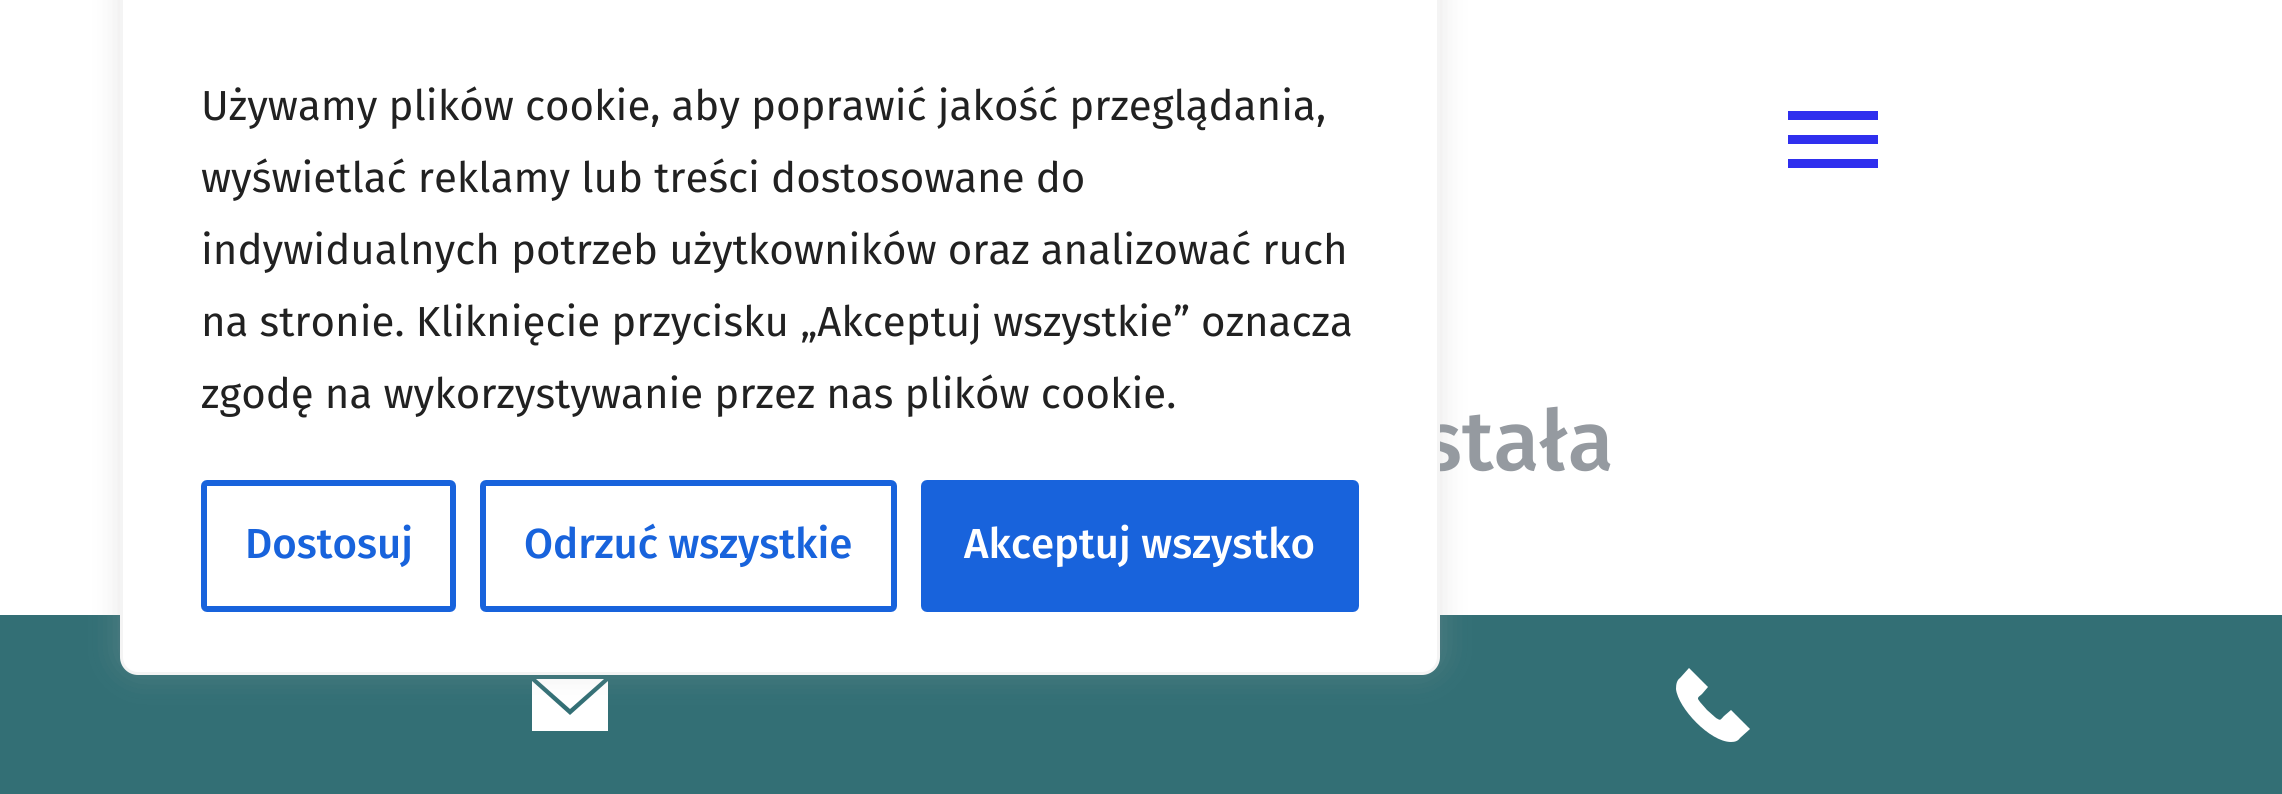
import math
import cairocffi as cairo

surface = cairo.ImageSurface(cairo.FORMAT_RGB24, 2282, 794)
cr = cairo.Context(surface)
options = cairo.FontOptions()
options.set_hint_metrics(cairo.HINT_METRICS_OFF)
options.set_hint_style(cairo.HINT_STYLE_NONE)
cr.set_font_options(options)
cr.set_miter_limit(4)


def use_color(code):
    cr.set_source_rgb(*(v / 255 for v in bytes.fromhex(code[-6:])))


def round_rect(x, y, w, h, r):
    cr.new_sub_path()
    for i, (u, v) in enumerate([(x + w - r, y + h - r), (x + r, y + h - r), (x + r, y + r), (x + w - r, y + r)]):
        cr.arc(u, v, r, i * math.pi / 2, (i + 1) * math.pi / 2)
    cr.close_path()


def shadow(x, y, w, h, r, blur, alpha):
    cr.push_group_with_content(cairo.CONTENT_ALPHA)
    cr.set_operator(cairo.OPERATOR_SOURCE)
    for i in range(15, -16, -2):
        e = blur * i / 6
        if min(w, h) + 2 * e > 0:
            cr.set_source_rgba(0, 0, 0, alpha * math.erfc((i - 1) / 8.5) / 2)
            round_rect(x - e, y - e, w + 2 * e, h + 2 * e, max(0, min(r + e + blur * .6, min(w, h) / 2 + e)))
            cr.fill()
    cr.mask(cr.pop_group())


use_color("#ffffff")
cr.paint()
use_color("#336f75")
cr.rectangle(0, 615, 2282, 179)
cr.fill()
use_color("#ffffff")
cr.new_path()
cr.move_to(536, 679)
cr.line_to(570, 709)
cr.line_to(604, 679)
cr.close_path()
cr.fill()
cr.new_path()
cr.move_to(570, 715)
cr.line_to(532, 681)
cr.line_to(532, 731)
cr.line_to(608, 731)
cr.line_to(608, 681)
cr.close_path()
cr.fill()
use_color("#acabab")
shadow(120, -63, 1320, 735, 18, 15, 0.3)
cr.select_font_face("Fira Sans Medium")
cr.set_font_size(84)
use_color("#959aa0")
cr.move_to(1422, 470)
cr.show_text("stała")
use_color("#ffffff")
round_rect(121.5, -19.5, 1317, 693, 16.5)
cr.fill_preserve()
use_color("#f4f4f4")
cr.set_line_width(3)
cr.stroke()
cr.select_font_face("Fira Sans")
cr.set_font_size(42)
use_color("#212121")
cr.move_to(201, 120)
cr.show_text("Używamy plików cookie, aby poprawić jakość przeglądania,")
cr.move_to(201, 192)
cr.show_text("wyświetlać reklamy lub treści dostosowane do")
cr.move_to(201, 264)
cr.show_text("indywidualnych potrzeb użytkowników oraz analizować ruch")
cr.move_to(201, 336)
cr.show_text("na stronie. Kliknięcie przycisku „Akceptuj wszystkie” oznacza")
cr.move_to(201, 408)
cr.show_text("zgodę na wykorzystywanie przez nas plików cookie.")
round_rect(204, 483, 249, 126, 3)
use_color("#1863dc")
cr.set_line_width(6)
cr.stroke()
cr.select_font_face("Fira Sans Medium")
cr.move_to(245, 558)
cr.show_text("Dostosuj")
round_rect(483, 483, 411, 126, 3)
cr.stroke()
cr.move_to(524, 558)
cr.show_text("Odrzuć wszystkie")
round_rect(924, 483, 432, 126, 3)
cr.fill_preserve()
cr.stroke()
use_color("#ffffff")
cr.move_to(964, 558)
cr.show_text("Akceptuj wszystko")
use_color("#2f2fee")
cr.rectangle(1788, 111, 90, 9)
cr.fill()
cr.rectangle(1788, 135, 90, 9)
cr.fill()
cr.rectangle(1788, 159, 90, 9)
cr.fill()
use_color("#ffffff")
cr.new_path()
cr.move_to(1708, 687)
cr.line_to(1689, 668)
cr.line_to(1680, 678)
cr.curve_to(1677, 680, 1676, 684, 1676, 689)
cr.curve_to(1678, 708, 1710, 742, 1731, 742)
cr.curve_to(1735, 742, 1738, 741, 1740, 738)
cr.line_to(1750, 729)
cr.line_to(1731, 710)
cr.line_to(1724, 716)
cr.curve_to(1720, 720, 1721, 721, 1716, 718)
cr.line_to(1707, 710)
cr.line_to(1700, 702)
cr.curve_to(1697, 698, 1697, 698, 1702, 694)
cr.close_path()
cr.fill()
surface.write_to_png("result.png")
